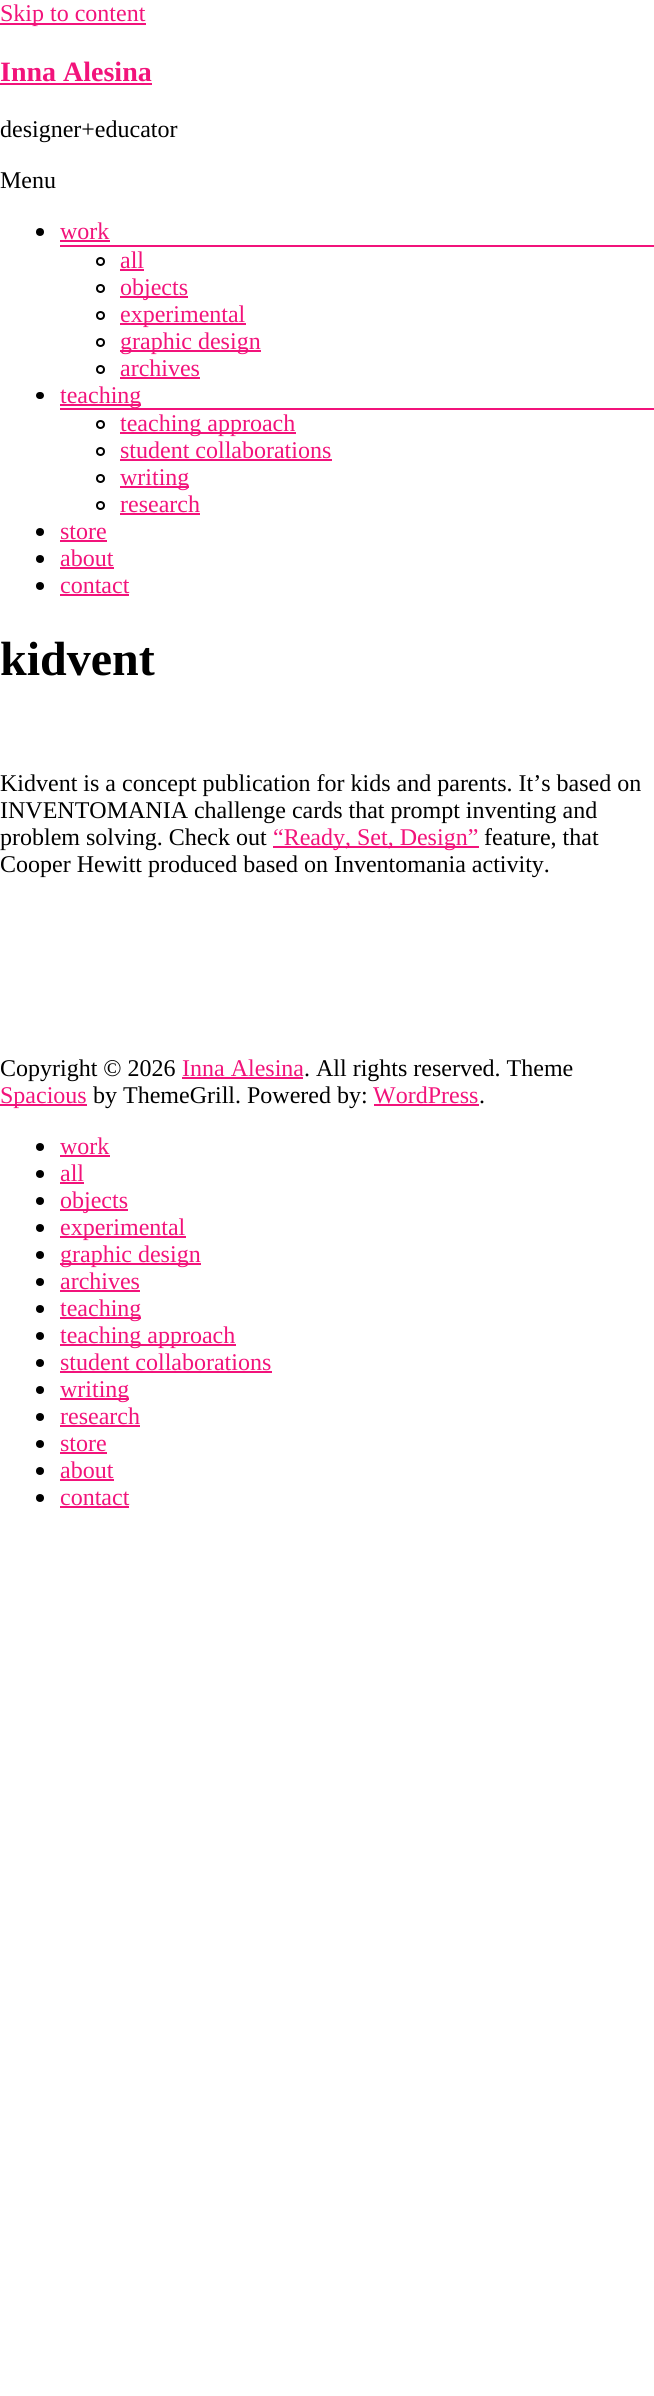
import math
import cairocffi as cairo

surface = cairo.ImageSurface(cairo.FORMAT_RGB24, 654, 2396)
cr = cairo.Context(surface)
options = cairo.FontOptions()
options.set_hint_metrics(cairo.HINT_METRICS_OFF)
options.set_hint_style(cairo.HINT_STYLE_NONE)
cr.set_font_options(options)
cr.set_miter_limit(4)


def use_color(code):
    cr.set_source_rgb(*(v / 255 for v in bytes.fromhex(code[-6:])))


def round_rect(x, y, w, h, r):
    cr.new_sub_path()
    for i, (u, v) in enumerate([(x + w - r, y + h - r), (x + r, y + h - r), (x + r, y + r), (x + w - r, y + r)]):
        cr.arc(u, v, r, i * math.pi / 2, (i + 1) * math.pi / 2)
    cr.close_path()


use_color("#ffffff")
cr.paint()
use_color("#f2137b")
cr.rectangle(0, 23, 146, 2)
cr.fill()
cr.select_font_face("Liberation Serif")
cr.set_font_size(24)
cr.move_to(0, 21)
cr.show_text("Skip to content")
cr.select_font_face("Liberation Serif", cairo.FONT_SLANT_NORMAL, cairo.FONT_WEIGHT_BOLD)
cr.set_font_size(28)
cr.move_to(0, 81)
cr.show_text("Inna Alesina")
cr.rectangle(0, 83, 152, 2)
cr.fill()
cr.select_font_face("Liberation Serif")
cr.set_font_size(24)
use_color("#000000")
cr.move_to(0, 137)
cr.show_text("designer+educator")
cr.move_to(0, 188)
cr.show_text("Menu")
cr.new_path()
cr.arc(40, 232, 4, 0, 2 * math.pi)
cr.fill()
use_color("#f2137b")
cr.move_to(60, 239)
cr.show_text("work")
cr.rectangle(60, 240, 50, 2)
cr.fill()
cr.rectangle(60, 245, 594, 2)
cr.fill()
cr.arc(100.5, 261.5, 3.5, 0, 2 * math.pi)
use_color("#000000")
cr.stroke()
use_color("#f2137b")
cr.move_to(120, 268)
cr.show_text("all")
cr.rectangle(120, 269, 24, 2)
cr.fill()
cr.arc(100.5, 288.5, 3.5, 0, 2 * math.pi)
use_color("#000000")
cr.stroke()
use_color("#f2137b")
cr.rectangle(120, 296, 68, 2)
cr.fill()
cr.move_to(120, 295)
cr.show_text("objects")
cr.new_path()
cr.arc(100.5, 315.5, 3.5, 0, 2 * math.pi)
use_color("#000000")
cr.stroke()
use_color("#f2137b")
cr.rectangle(120, 323, 126, 2)
cr.fill()
cr.move_to(120, 322)
cr.show_text("experimental")
cr.new_path()
cr.arc(100.5, 342.5, 3.5, 0, 2 * math.pi)
use_color("#000000")
cr.stroke()
use_color("#f2137b")
cr.rectangle(120, 350, 141, 2)
cr.fill()
cr.move_to(120, 349)
cr.show_text("graphic design")
cr.new_path()
cr.arc(100.5, 369.5, 3.5, 0, 2 * math.pi)
use_color("#000000")
cr.stroke()
use_color("#f2137b")
cr.move_to(120, 376)
cr.show_text("archives")
cr.rectangle(120, 377, 80, 2)
cr.fill()
use_color("#000000")
round_rect(36, 392, 8, 7, 3.5)
cr.fill()
use_color("#f2137b")
cr.rectangle(60, 404, 81, 2)
cr.fill()
cr.rectangle(60, 408, 594, 2)
cr.fill()
cr.move_to(60, 403)
cr.show_text("teaching")
cr.new_path()
cr.arc(100.5, 424.5, 3.5, 0, 2 * math.pi)
use_color("#000000")
cr.stroke()
use_color("#f2137b")
cr.rectangle(120, 432, 176, 2)
cr.fill()
cr.move_to(120, 431)
cr.show_text("teaching approach")
cr.new_path()
cr.arc(100.5, 451.5, 3.5, 0, 2 * math.pi)
use_color("#000000")
cr.stroke()
use_color("#f2137b")
cr.move_to(120, 458)
cr.show_text("student collaborations")
cr.rectangle(120, 459, 212, 2)
cr.fill()
cr.arc(100.5, 478.5, 3.5, 0, 2 * math.pi)
use_color("#000000")
cr.stroke()
use_color("#f2137b")
cr.rectangle(120, 486, 69, 2)
cr.fill()
cr.move_to(120, 485)
cr.show_text("writing")
cr.new_path()
cr.arc(100.5, 505.5, 3.5, 0, 2 * math.pi)
use_color("#000000")
cr.stroke()
use_color("#f2137b")
cr.move_to(120, 512)
cr.show_text("research")
cr.rectangle(120, 513, 80, 2)
cr.fill()
use_color("#000000")
cr.arc(40, 532, 4, 0, 2 * math.pi)
cr.fill()
use_color("#f2137b")
cr.move_to(60, 539)
cr.show_text("store")
cr.rectangle(60, 540, 47, 2)
cr.fill()
use_color("#000000")
cr.arc(40, 559, 4, 0, 2 * math.pi)
cr.fill()
use_color("#f2137b")
cr.move_to(60, 566)
cr.show_text("about")
cr.rectangle(60, 567, 54, 2)
cr.fill()
use_color("#000000")
cr.arc(40, 586, 4, 0, 2 * math.pi)
cr.fill()
use_color("#f2137b")
cr.move_to(60, 593)
cr.show_text("contact")
cr.rectangle(60, 594, 69, 2)
cr.fill()
cr.select_font_face("Liberation Serif", cairo.FONT_SLANT_NORMAL, cairo.FONT_WEIGHT_BOLD)
cr.set_font_size(48)
use_color("#000000")
cr.move_to(0, 675)
cr.show_text("kidvent")
cr.select_font_face("Liberation Serif")
cr.set_font_size(24)
cr.move_to(0, 791)
cr.show_text("Kidvent is a concept publication for kids and parents. It’s based on")
cr.move_to(0, 818)
cr.show_text("INVENTOMANIA challenge cards that prompt inventing and")
cr.move_to(0, 845)
cr.show_text("problem solving. Check out")
use_color("#f2137b")
cr.rectangle(273, 846, 206, 2)
cr.fill()
cr.move_to(273, 845)
cr.show_text("“Ready, Set, Design”")
use_color("#000000")
cr.move_to(484, 845)
cr.show_text("feature, that")
cr.move_to(0, 872)
cr.show_text("Cooper Hewitt produced based on Inventomania activity.")
cr.move_to(0, 1076)
cr.show_text("Copyright © 2026")
use_color("#f2137b")
cr.move_to(182, 1076)
cr.show_text("Inna Alesina")
cr.rectangle(182, 1077, 121, 2)
cr.fill()
use_color("#000000")
cr.move_to(304, 1076)
cr.show_text(". All rights reserved. Theme")
use_color("#f2137b")
cr.rectangle(0, 1104, 87, 2)
cr.fill()
cr.move_to(0, 1103)
cr.show_text("Spacious")
use_color("#000000")
cr.move_to(93, 1103)
cr.show_text("by ThemeGrill. Powered by:")
use_color("#f2137b")
cr.move_to(373, 1103)
cr.show_text("WordPress")
cr.rectangle(374, 1104, 105, 2)
cr.fill()
use_color("#000000")
cr.move_to(479, 1103)
cr.show_text(".")
cr.new_path()
cr.arc(40, 1147, 4, 0, 2 * math.pi)
cr.fill()
use_color("#f2137b")
cr.move_to(60, 1154)
cr.show_text("work")
cr.rectangle(60, 1155, 50, 2)
cr.fill()
use_color("#000000")
cr.arc(40, 1174, 4, 0, 2 * math.pi)
cr.fill()
use_color("#f2137b")
cr.move_to(60, 1181)
cr.show_text("all")
cr.rectangle(60, 1182, 24, 2)
cr.fill()
use_color("#000000")
cr.arc(40, 1201, 4, 0, 2 * math.pi)
cr.fill()
use_color("#f2137b")
cr.rectangle(60, 1209, 68, 2)
cr.fill()
cr.move_to(60, 1208)
cr.show_text("objects")
use_color("#000000")
cr.new_path()
cr.arc(40, 1228, 4, 0, 2 * math.pi)
cr.fill()
use_color("#f2137b")
cr.rectangle(60, 1236, 126, 2)
cr.fill()
cr.move_to(60, 1235)
cr.show_text("experimental")
use_color("#000000")
cr.new_path()
cr.arc(40, 1255, 4, 0, 2 * math.pi)
cr.fill()
use_color("#f2137b")
cr.rectangle(60, 1263, 141, 2)
cr.fill()
cr.move_to(60, 1262)
cr.show_text("graphic design")
use_color("#000000")
cr.new_path()
cr.arc(40, 1282, 4, 0, 2 * math.pi)
cr.fill()
use_color("#f2137b")
cr.move_to(60, 1289)
cr.show_text("archives")
cr.rectangle(60, 1290, 80, 2)
cr.fill()
use_color("#000000")
cr.arc(40, 1309, 4, 0, 2 * math.pi)
cr.fill()
use_color("#f2137b")
cr.rectangle(60, 1317, 81, 2)
cr.fill()
cr.move_to(60, 1316)
cr.show_text("teaching")
use_color("#000000")
cr.new_path()
cr.arc(40, 1336, 4, 0, 2 * math.pi)
cr.fill()
use_color("#f2137b")
cr.rectangle(60, 1344, 176, 2)
cr.fill()
cr.move_to(60, 1343)
cr.show_text("teaching approach")
use_color("#000000")
cr.new_path()
cr.arc(40, 1363, 4, 0, 2 * math.pi)
cr.fill()
use_color("#f2137b")
cr.move_to(60, 1370)
cr.show_text("student collaborations")
cr.rectangle(60, 1371, 212, 2)
cr.fill()
use_color("#000000")
cr.arc(40, 1390, 4, 0, 2 * math.pi)
cr.fill()
use_color("#f2137b")
cr.rectangle(60, 1398, 69, 2)
cr.fill()
cr.move_to(60, 1397)
cr.show_text("writing")
use_color("#000000")
cr.new_path()
cr.arc(40, 1417, 4, 0, 2 * math.pi)
cr.fill()
use_color("#f2137b")
cr.move_to(60, 1424)
cr.show_text("research")
cr.rectangle(60, 1425, 80, 2)
cr.fill()
use_color("#000000")
cr.arc(40, 1444, 4, 0, 2 * math.pi)
cr.fill()
use_color("#f2137b")
cr.move_to(60, 1451)
cr.show_text("store")
cr.rectangle(60, 1452, 47, 2)
cr.fill()
use_color("#000000")
cr.arc(40, 1471, 4, 0, 2 * math.pi)
cr.fill()
use_color("#f2137b")
cr.move_to(60, 1478)
cr.show_text("about")
cr.rectangle(60, 1479, 54, 2)
cr.fill()
use_color("#000000")
cr.arc(40, 1498, 4, 0, 2 * math.pi)
cr.fill()
use_color("#f2137b")
cr.move_to(60, 1505)
cr.show_text("contact")
cr.rectangle(60, 1506, 69, 2)
cr.fill()
surface.write_to_png("result.png")
